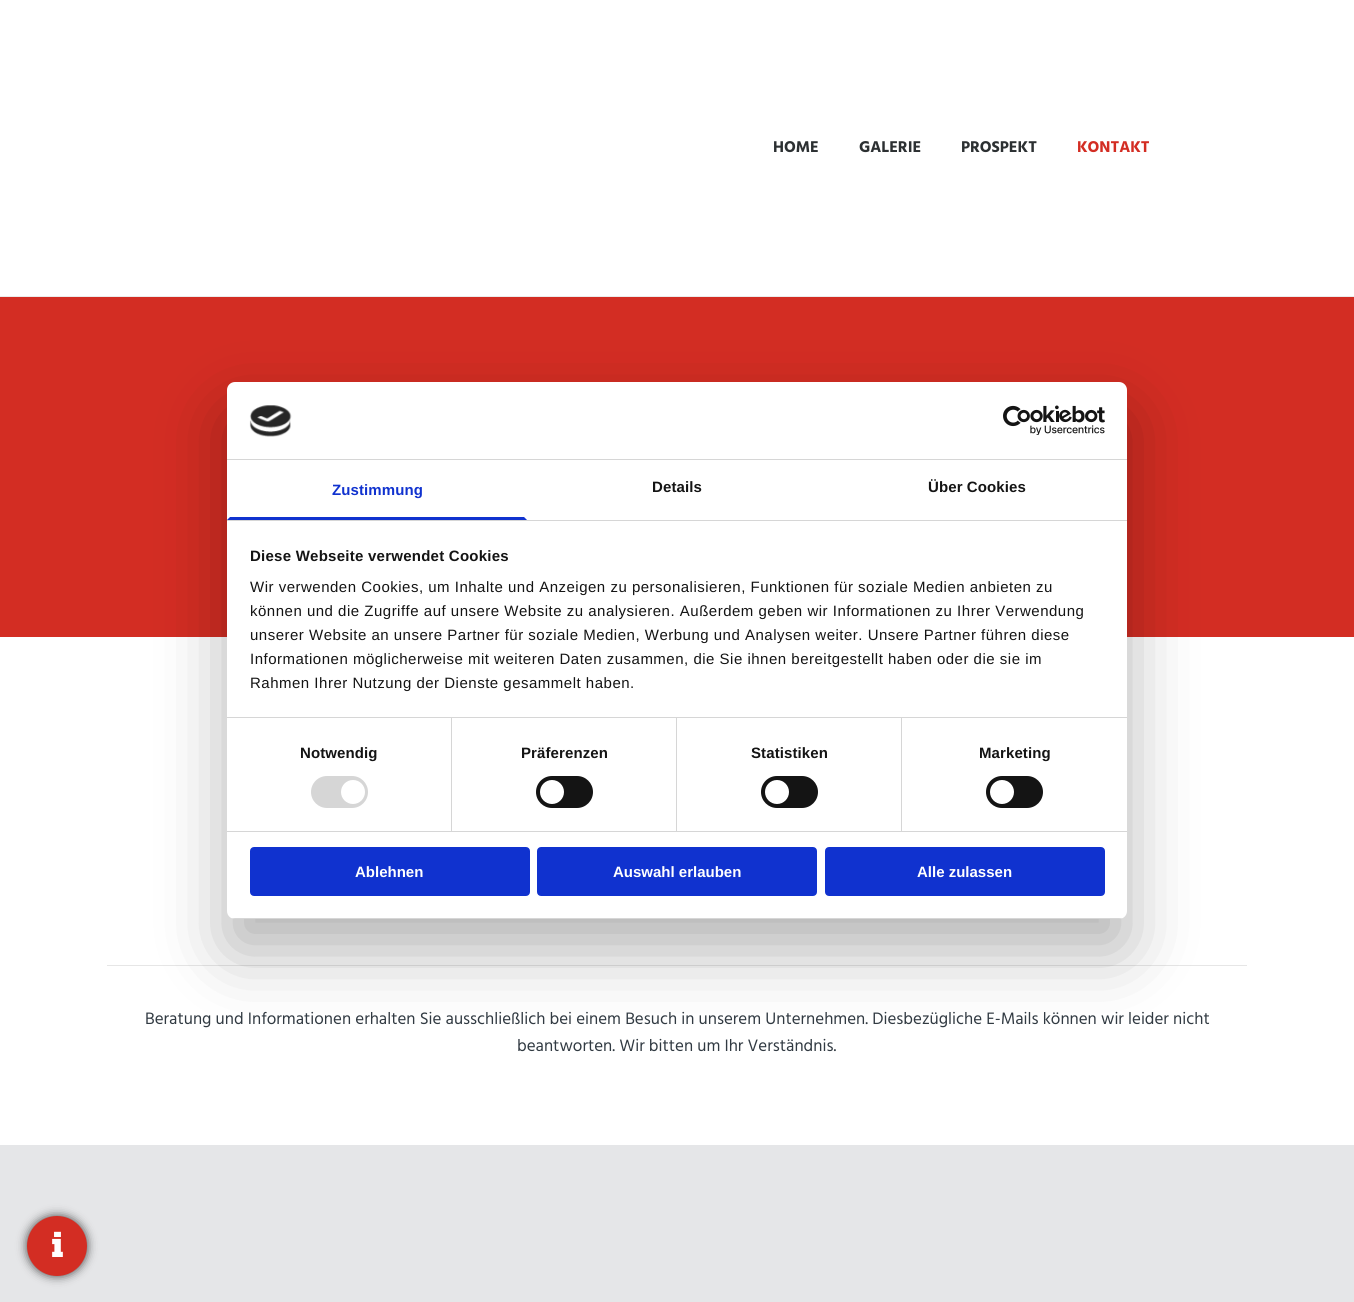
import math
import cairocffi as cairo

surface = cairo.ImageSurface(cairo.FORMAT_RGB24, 1354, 1302)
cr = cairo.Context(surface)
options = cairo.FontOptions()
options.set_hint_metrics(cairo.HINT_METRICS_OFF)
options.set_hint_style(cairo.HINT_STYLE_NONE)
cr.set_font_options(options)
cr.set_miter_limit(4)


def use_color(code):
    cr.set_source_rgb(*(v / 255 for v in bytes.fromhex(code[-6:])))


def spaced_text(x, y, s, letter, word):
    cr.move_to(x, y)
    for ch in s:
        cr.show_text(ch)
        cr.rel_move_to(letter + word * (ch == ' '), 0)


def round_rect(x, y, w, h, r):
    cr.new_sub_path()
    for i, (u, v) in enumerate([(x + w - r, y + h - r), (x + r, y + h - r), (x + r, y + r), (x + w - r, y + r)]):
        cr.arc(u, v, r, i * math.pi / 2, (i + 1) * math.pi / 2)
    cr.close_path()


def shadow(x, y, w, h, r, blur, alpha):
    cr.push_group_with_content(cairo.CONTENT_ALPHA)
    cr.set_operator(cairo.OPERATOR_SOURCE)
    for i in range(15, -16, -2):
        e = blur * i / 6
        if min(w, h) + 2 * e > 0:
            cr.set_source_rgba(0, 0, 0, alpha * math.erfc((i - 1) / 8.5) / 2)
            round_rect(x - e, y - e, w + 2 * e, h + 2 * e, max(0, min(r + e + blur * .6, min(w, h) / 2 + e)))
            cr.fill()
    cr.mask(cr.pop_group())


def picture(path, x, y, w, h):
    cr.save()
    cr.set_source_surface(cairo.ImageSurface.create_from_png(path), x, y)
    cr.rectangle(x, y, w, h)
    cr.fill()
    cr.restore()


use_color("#ffffff")
cr.paint()
use_color("#ebebeb")
cr.rectangle(0, 296, 1354, 1)
cr.fill()
cr.select_font_face("Hind", cairo.FONT_SLANT_NORMAL, cairo.FONT_WEIGHT_BOLD)
cr.set_font_size(16)
use_color("#2c3032")
cr.move_to(773, 152)
cr.show_text("HOME")
cr.move_to(859, 152)
cr.show_text("GALERIE")
cr.move_to(961, 152)
cr.show_text("PROSPEKT")
use_color("#d32d23")
cr.move_to(1077, 152)
cr.show_text("KONTAKT")
use_color("#e5e6e8")
cr.rectangle(0, 1145, 1354, 157)
cr.fill()
use_color("#444444")
shadow(27, 1216, 60, 60, 30, 5, 1)
use_color("#d32d23")
cr.arc(57, 1246, 30, 0, 2 * math.pi)
cr.fill()
cr.select_font_face("Hepta Slab ExtraLight")
cr.set_font_size(32)
use_color("#ffffff")
cr.move_to(51, 1257)
cr.show_text("i")
use_color("#d32d23")
cr.rectangle(0, 297, 1354, 340)
cr.fill()
use_color("#e6e6e6")
cr.rectangle(107, 965, 1140, 1)
cr.fill()
cr.select_font_face("Hind")
cr.set_font_size(17)
use_color("#313a42")
cr.move_to(145, 1024)
cr.show_text("Beratung und Informationen erhalten Sie ausschließlich bei einem Besuch in unserem Unternehmen. Diesbezügliche E-Mails können wir leider nicht")
cr.move_to(517, 1051)
cr.show_text("beantworten. Wir bitten um Ihr Verständnis.")
use_color("#000000")
shadow(227, 414, 900, 537, 8, 34, 0.3)
use_color("#ffffff")
round_rect(227, 382, 900, 537, 8)
cr.fill()
use_color("#d6d6d6")
cr.rectangle(227, 459, 900, 1)
cr.fill()
picture("img1.png", 249, 405, 43, 32)
picture("img2.png", 1003, 405, 102, 30)
cr.rectangle(227, 520, 900, 1)
cr.fill()
use_color("#1032cf")
cr.new_path()
cr.move_to(527, 520)
cr.line_to(227, 520)
cr.line_to(230, 517)
cr.line_to(524, 517)
cr.close_path()
cr.fill()
cr.select_font_face("Liberation Sans", cairo.FONT_SLANT_NORMAL, cairo.FONT_WEIGHT_BOLD)
cr.set_font_size(15)
spaced_text(332, 495, "Zustimmung", 0.1, 0)
use_color("#141414")
spaced_text(652, 492, "Details", 0.1, 0)
spaced_text(928, 492, "Über Cookies", 0.1, 0)
use_color("#d6d6d6")
cr.rectangle(227, 717, 900, 1)
cr.fill()
use_color("#141414")
spaced_text(250, 561, "Diese Webseite verwendet Cookies", 0.25, 0)
cr.select_font_face("Liberation Sans")
spaced_text(250, 592, "Wir verwenden Cookies, um Inhalte und Anzeigen zu personalisieren, Funktionen für soziale Medien anbieten zu", 0.5, 0)
spaced_text(250, 616, "können und die Zugriffe auf unsere Website zu analysieren. Außerdem geben wir Informationen zu Ihrer Verwendung", 0.5, 0)
spaced_text(250, 640, "unserer Website an unsere Partner für soziale Medien, Werbung und Analysen weiter. Unsere Partner führen diese", 0.5, 0)
spaced_text(250, 664, "Informationen möglicherweise mit weiteren Daten zusammen, die Sie ihnen bereitgestellt haben oder die sie im", 0.5, 0)
spaced_text(250, 688, "Rahmen Ihrer Nutzung der Dienste gesammelt haben.", 0.5, 0)
use_color("#d6d6d6")
cr.rectangle(227, 831, 900, 1)
cr.fill()
cr.rectangle(451, 718, 1, 113)
cr.fill()
cr.select_font_face("Liberation Sans", cairo.FONT_SLANT_NORMAL, cairo.FONT_WEIGHT_BOLD)
use_color("#141414")
spaced_text(300, 758, "Notwendig", 0.1, 0)
use_color("#d6d6d6")
round_rect(311, 776, 57, 32, 16)
cr.fill()
use_color("#ffffff")
cr.arc(353, 792, 12, 0, 2 * math.pi)
cr.fill()
use_color("#d6d6d6")
cr.rectangle(676, 718, 1, 113)
cr.fill()
use_color("#141414")
spaced_text(521, 758, "Präferenzen", 0.1, 0)
round_rect(536, 776, 57, 32, 16)
cr.fill()
use_color("#ffffff")
cr.arc(552, 792, 12, 0, 2 * math.pi)
cr.fill()
use_color("#d6d6d6")
cr.rectangle(901, 718, 1, 113)
cr.fill()
use_color("#141414")
spaced_text(751, 758, "Statistiken", 0.1, 0)
round_rect(761, 776, 57, 32, 16)
cr.fill()
use_color("#ffffff")
cr.arc(777, 792, 12, 0, 2 * math.pi)
cr.fill()
use_color("#141414")
spaced_text(979, 758, "Marketing", 0.1, 0)
round_rect(986, 776, 57, 32, 16)
cr.fill()
use_color("#ffffff")
cr.arc(1002, 792, 12, 0, 2 * math.pi)
cr.fill()
cr.save()
round_rect(227, 382, 900, 537, 8)
cr.clip()
use_color("#d6d6d6")
cr.rectangle(227, 918, 900, 1)
cr.fill()
cr.restore()
use_color("#1032cf")
round_rect(251, 848, 278, 47, 3)
cr.fill_preserve()
cr.stroke()
use_color("#ffffff")
cr.move_to(355, 877)
cr.show_text("Ablehnen")
use_color("#1032cf")
round_rect(538, 848, 278, 47, 3)
cr.fill_preserve()
cr.stroke()
use_color("#ffffff")
cr.move_to(613, 877)
cr.show_text("Auswahl erlauben")
use_color("#1032cf")
round_rect(826, 848, 278, 47, 3)
cr.fill_preserve()
cr.stroke()
use_color("#ffffff")
cr.move_to(917, 877)
cr.show_text("Alle zulassen")
surface.write_to_png("result.png")
